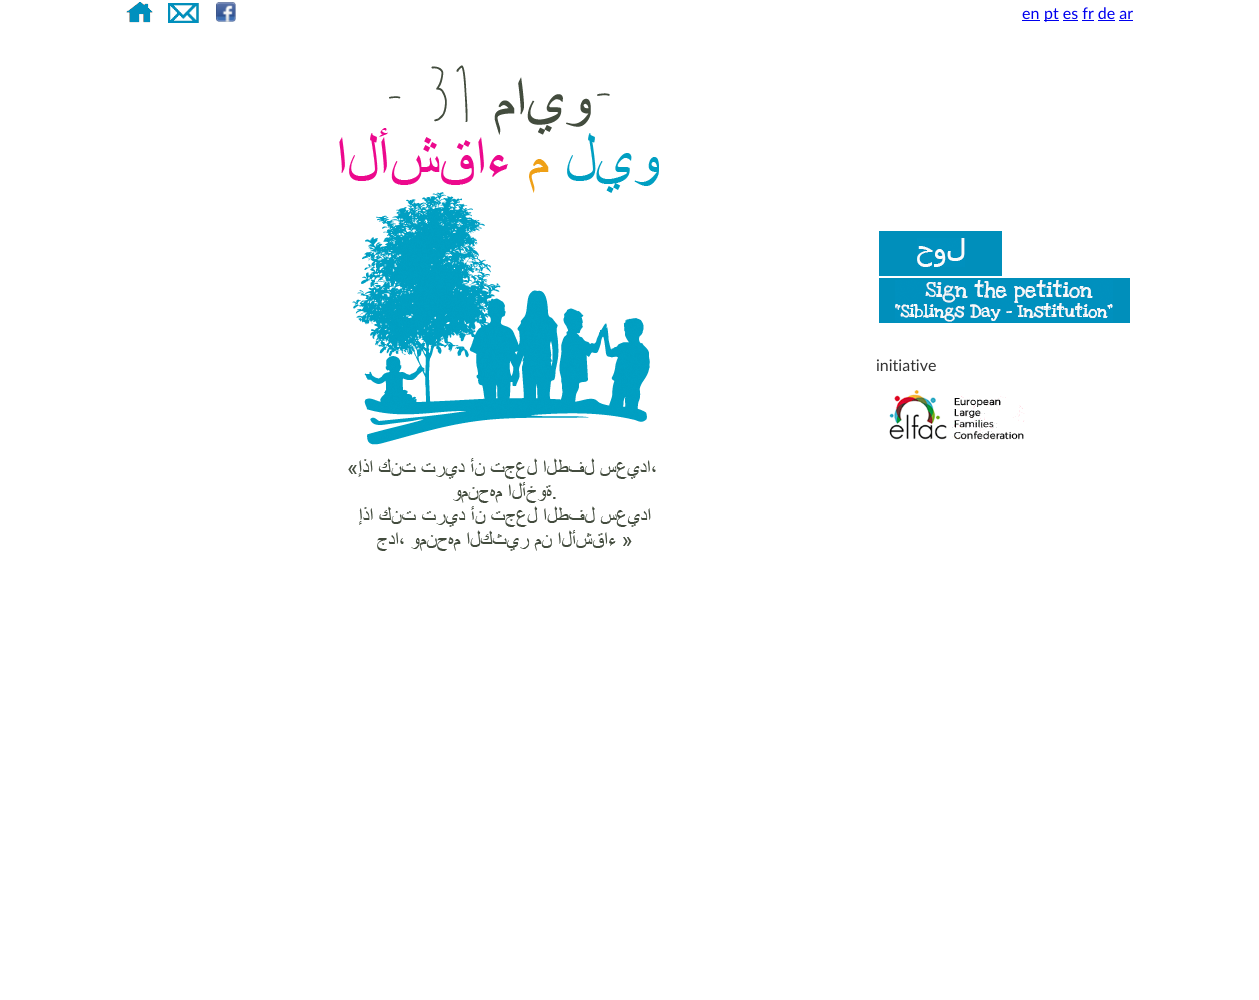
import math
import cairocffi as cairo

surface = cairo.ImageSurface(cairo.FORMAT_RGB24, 1259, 1000)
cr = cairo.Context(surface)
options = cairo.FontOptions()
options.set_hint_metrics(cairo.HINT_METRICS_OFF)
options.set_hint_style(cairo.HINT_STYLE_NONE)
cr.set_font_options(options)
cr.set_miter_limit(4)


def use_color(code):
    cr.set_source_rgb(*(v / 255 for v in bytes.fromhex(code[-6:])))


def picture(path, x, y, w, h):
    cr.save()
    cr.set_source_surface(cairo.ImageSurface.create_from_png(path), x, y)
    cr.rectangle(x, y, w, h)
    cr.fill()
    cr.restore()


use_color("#ffffff")
cr.paint()
picture("img1.png", 126, 2, 27, 21)
picture("img2.png", 168, 3, 31, 20)
picture("img3.png", 216, 2, 20, 20)
cr.select_font_face("Lato")
cr.set_font_size(16)
use_color("#0000ee")
cr.move_to(1022, 19)
cr.show_text("en")
cr.rectangle(1022, 20, 18, 1)
cr.fill()
cr.rectangle(1044, 20, 15, 1)
cr.fill()
cr.move_to(1044, 19)
cr.show_text("pt es fr de ar")
cr.rectangle(1063, 20, 15, 1)
cr.fill()
cr.rectangle(1082, 20, 12, 1)
cr.fill()
cr.rectangle(1098, 20, 17, 1)
cr.fill()
cr.rectangle(1119, 20, 14, 1)
cr.fill()
picture("img4.png", 339, 65, 320, 486)
use_color("#008fbb")
cr.rectangle(879, 231, 123, 45)
cr.fill()
picture("img5.png", 917, 238, 48, 29)
cr.rectangle(879, 278, 251, 45)
cr.fill()
picture("img6.png", 895, 280, 218, 42)
use_color("#333333")
cr.move_to(876, 371)
cr.show_text("initiative")
picture("img7.png", 889, 390, 136, 50)
surface.write_to_png("result.png")
